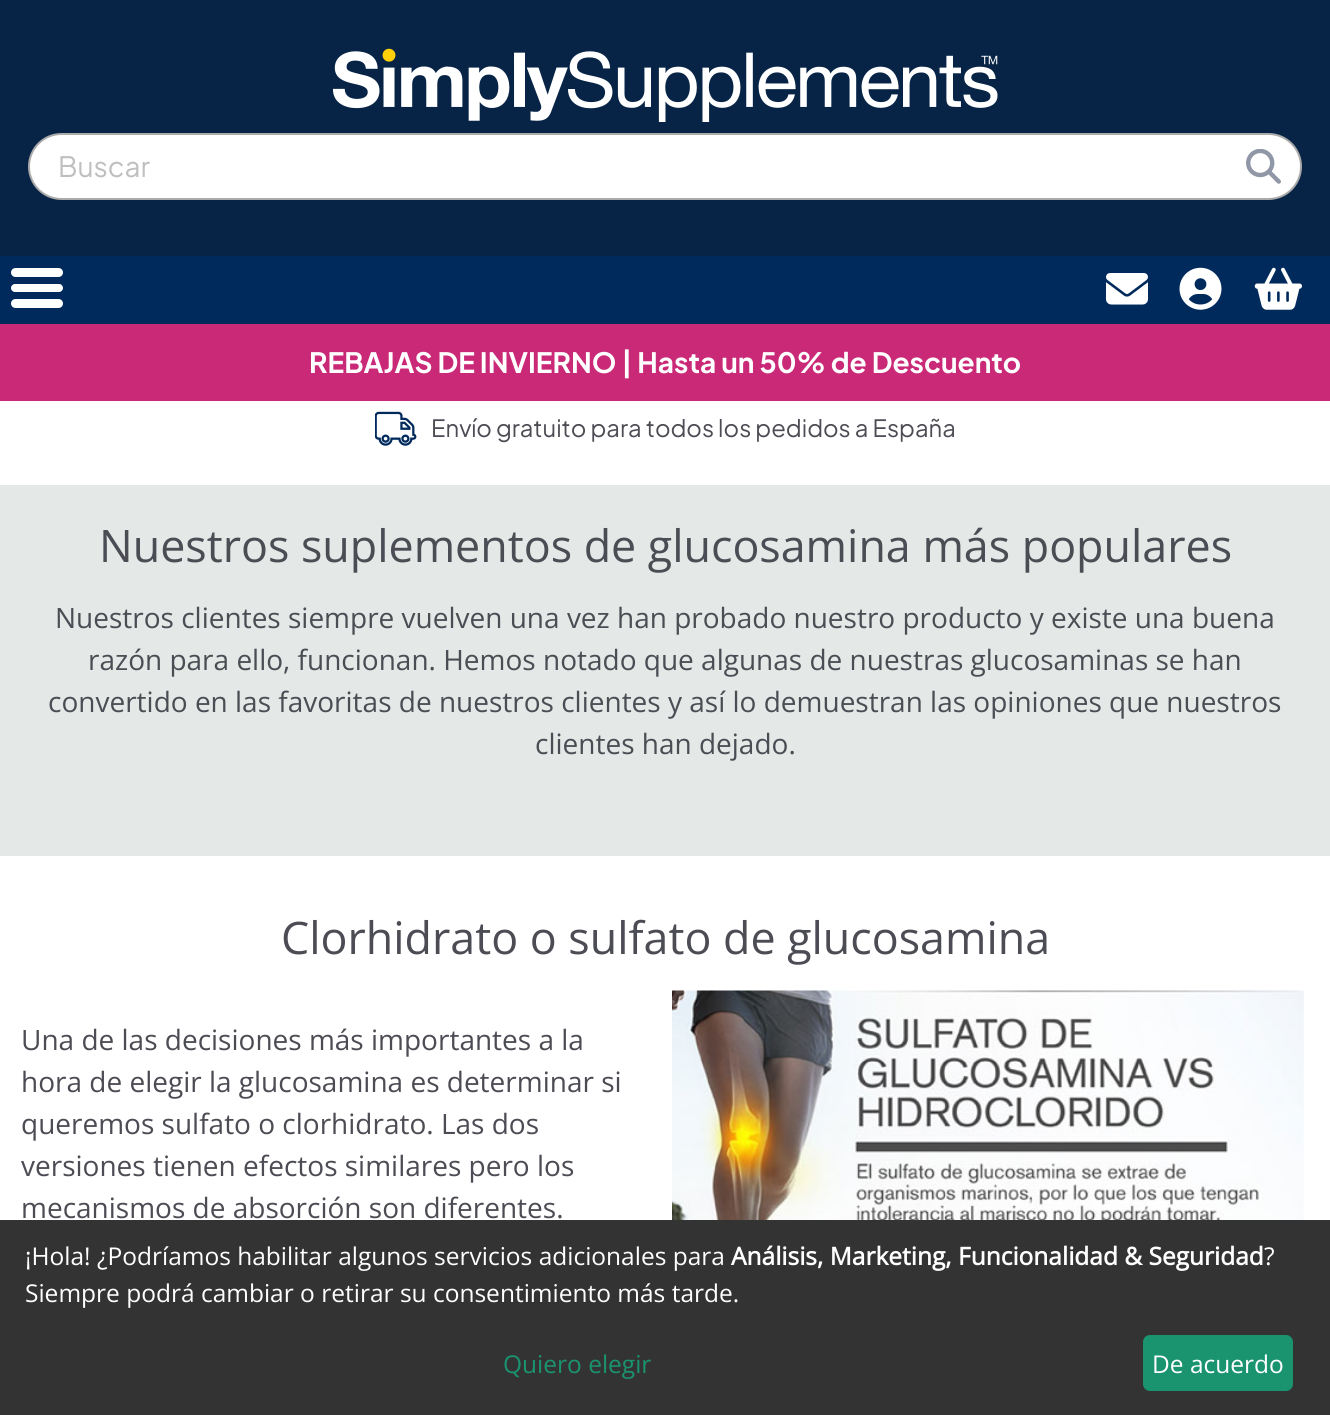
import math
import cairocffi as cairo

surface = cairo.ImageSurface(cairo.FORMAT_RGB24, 1330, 1415)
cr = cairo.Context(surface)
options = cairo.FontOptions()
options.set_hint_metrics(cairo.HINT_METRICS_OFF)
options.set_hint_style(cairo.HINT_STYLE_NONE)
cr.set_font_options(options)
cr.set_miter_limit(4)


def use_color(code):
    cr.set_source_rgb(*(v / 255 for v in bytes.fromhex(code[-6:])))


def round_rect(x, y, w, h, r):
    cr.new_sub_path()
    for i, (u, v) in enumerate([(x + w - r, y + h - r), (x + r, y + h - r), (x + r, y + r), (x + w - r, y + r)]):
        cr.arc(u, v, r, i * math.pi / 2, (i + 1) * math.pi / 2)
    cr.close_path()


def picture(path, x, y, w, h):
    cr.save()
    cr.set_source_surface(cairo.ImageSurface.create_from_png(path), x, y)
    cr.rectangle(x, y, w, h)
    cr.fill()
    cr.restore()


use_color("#ffffff")
cr.paint()
use_color("#072446")
cr.rectangle(0, 0, 1330, 256)
cr.fill()
picture("img1.png", 333, 48, 665, 74)
use_color("#ffffff")
round_rect(29, 134, 1272, 65, 32.5)
cr.fill_preserve()
use_color("#aaaaaa")
cr.stroke()
cr.select_font_face("Plus Jakarta Sans")
cr.set_font_size(28)
use_color("#bfbfbf")
cr.move_to(58, 177)
cr.show_text("Buscar")
picture("img2.png", 1246, 149, 35, 35)
use_color("#002a5c")
cr.rectangle(0, 256, 1330, 68)
cr.fill()
use_color("#ffffff")
round_rect(11, 268, 52, 9, 4.5)
cr.fill()
round_rect(11, 284, 52, 8, 4)
cr.fill()
round_rect(11, 299, 52, 9, 4.5)
cr.fill()
picture("img3.png", 1106, 273, 42, 32)
picture("img4.png", 1179, 267, 43, 43)
picture("img5.png", 1254, 267, 48, 43)
use_color("#ca2977")
cr.rectangle(0, 324, 1330, 77)
cr.fill()
cr.select_font_face("Plus Jakarta Sans", cairo.FONT_SLANT_NORMAL, cairo.FONT_WEIGHT_BOLD)
use_color("#ffffff")
cr.move_to(309, 373)
cr.show_text("REBAJAS DE INVIERNO | Hasta un 50% de Descuento")
picture("img6.png", 375, 411, 42, 35)
cr.select_font_face("Plus Jakarta Sans")
cr.set_font_size(23.8)
use_color("#4c4c54")
cr.move_to(431, 437)
cr.show_text("Envío gratuito para todos los pedidos a España")
use_color("#e4e8e6")
cr.rectangle(0, 485, 1330, 371)
cr.fill()
cr.select_font_face("Open Sans")
cr.set_font_size(44.8)
use_color("#4c4c54")
cr.move_to(99, 562)
cr.show_text("Nuestros suplementos de glucosamina más populares")
cr.set_font_size(28)
cr.move_to(55, 628)
cr.show_text("Nuestros clientes siempre vuelven una vez han probado nuestro producto y existe una buena")
cr.move_to(88, 670)
cr.show_text("razón para ello, funcionan. Hemos notado que algunas de nuestras glucosaminas se han")
cr.move_to(48, 712)
cr.show_text("convertido en las favoritas de nuestros clientes y así lo demuestran las opiniones que nuestros")
cr.move_to(535, 754)
cr.show_text("clientes han dejado.")
cr.set_font_size(44.8)
cr.move_to(281, 954)
cr.show_text("Clorhidrato o sulfato de glucosamina")
cr.set_font_size(28)
cr.move_to(21, 1050)
cr.show_text("Una de las decisiones más importantes a la")
cr.move_to(21, 1092)
cr.show_text("hora de elegir la glucosamina es determinar si")
cr.move_to(21, 1134)
cr.show_text("queremos sulfato o clorhidrato. Las dos")
cr.move_to(21, 1176)
cr.show_text("versiones tienen efectos similares pero los")
cr.move_to(21, 1218)
cr.show_text("mecanismos de absorción son diferentes.")
picture("img7.png", 672, 990, 632, 230)
use_color("#333333")
cr.rectangle(0, 1220, 1330, 195)
cr.fill()
cr.set_font_size(24.5)
use_color("#ffffff")
cr.move_to(25, 1265)
cr.show_text("¡Hola! ¿Podríamos habilitar algunos servicios adicionales para")
cr.select_font_face("Open Sans", cairo.FONT_SLANT_NORMAL, cairo.FONT_WEIGHT_BOLD)
cr.move_to(731, 1265)
cr.show_text("Análisis, Marketing, Funcionalidad & Seguridad")
cr.select_font_face("Open Sans")
cr.move_to(1264, 1265)
cr.show_text("?")
cr.move_to(25, 1302)
cr.show_text("Siempre podrá cambiar o retirar su consentimiento más tarde.")
use_color("#1a936f")
cr.move_to(503, 1373)
cr.show_text("Quiero elegir")
round_rect(1143, 1335, 150, 56, 7)
cr.fill()
use_color("#ffffff")
cr.move_to(1152, 1373)
cr.show_text("De acuerdo")
surface.write_to_png("result.png")
